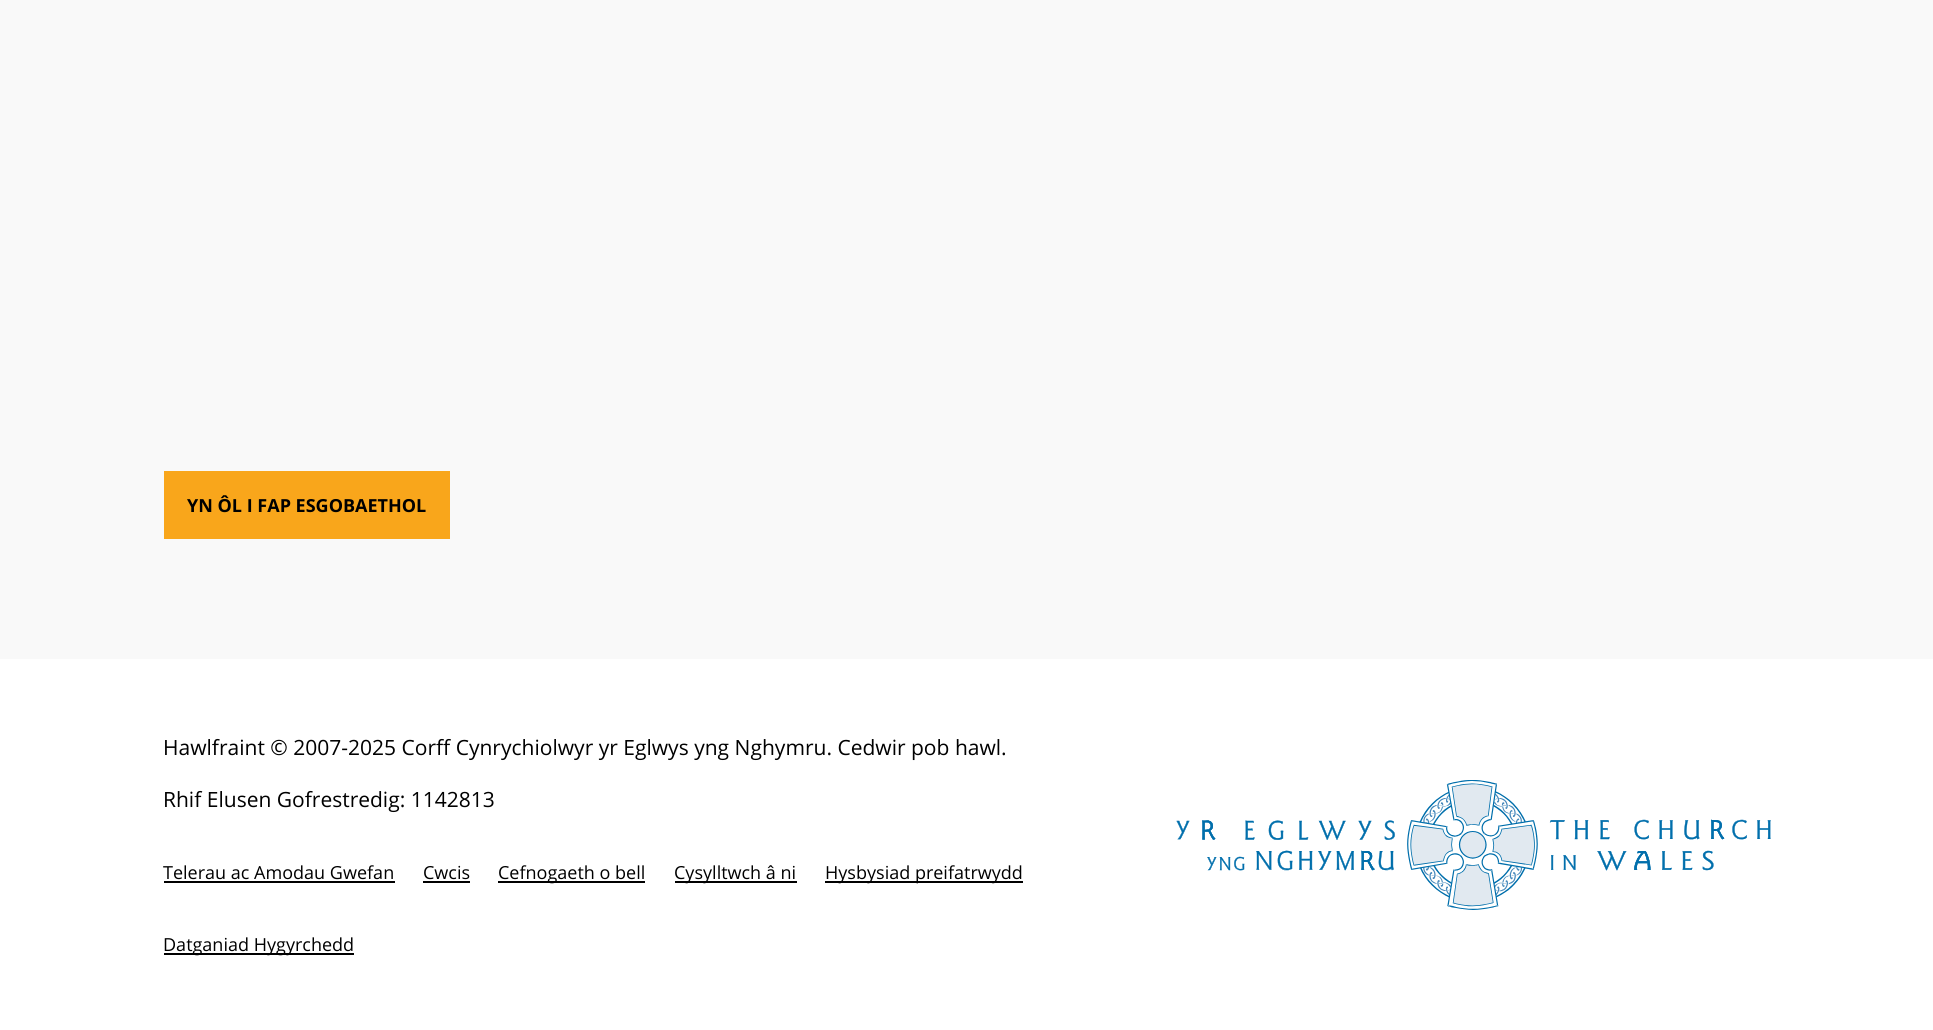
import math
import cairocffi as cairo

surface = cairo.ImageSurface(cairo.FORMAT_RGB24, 1933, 1030)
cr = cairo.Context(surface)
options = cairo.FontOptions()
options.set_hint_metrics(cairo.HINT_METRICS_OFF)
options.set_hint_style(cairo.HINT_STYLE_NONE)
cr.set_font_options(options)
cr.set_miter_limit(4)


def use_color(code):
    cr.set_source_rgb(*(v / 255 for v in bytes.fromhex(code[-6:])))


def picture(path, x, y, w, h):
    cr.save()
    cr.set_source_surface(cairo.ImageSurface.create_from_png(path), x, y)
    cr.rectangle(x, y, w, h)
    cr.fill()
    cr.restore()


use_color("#ffffff")
cr.paint()
use_color("#f9f9f9")
cr.rectangle(0, 0, 1933, 659)
cr.fill()
use_color("#f9a61b")
cr.rectangle(164, 471, 286, 68)
cr.fill()
cr.select_font_face("Open Sans", cairo.FONT_SLANT_NORMAL, cairo.FONT_WEIGHT_BOLD)
cr.set_font_size(18)
use_color("#000000")
cr.move_to(187, 512)
cr.show_text("YN ÔL I FAP ESGOBAETHOL")
cr.select_font_face("Open Sans")
cr.set_font_size(21)
cr.move_to(163, 755)
cr.show_text("Hawlfraint © 2007-2025 Corff Cynrychiolwyr yr Eglwys yng Nghymru. Cedwir pob hawl.")
cr.move_to(163, 807)
cr.show_text("Rhif Elusen Gofrestredig: 1142813")
cr.set_font_size(18)
cr.move_to(163, 879)
cr.show_text("Telerau ac Amodau Gwefan")
cr.rectangle(164, 881, 231, 2)
cr.fill()
cr.move_to(423, 879)
cr.show_text("Cwcis")
cr.rectangle(423, 881, 47, 2)
cr.fill()
cr.rectangle(498, 881, 147, 2)
cr.fill()
cr.move_to(498, 879)
cr.show_text("Cefnogaeth o bell")
cr.rectangle(675, 881, 122, 2)
cr.fill()
cr.move_to(674, 879)
cr.show_text("Cysylltwch â ni")
cr.rectangle(825, 881, 198, 2)
cr.fill()
cr.move_to(825, 879)
cr.show_text("Hysbysiad preifatrwydd")
cr.rectangle(164, 953, 190, 2)
cr.fill()
cr.move_to(163, 951)
cr.show_text("Datganiad Hygyrchedd")
picture("img1.png", 1176, 780, 595, 130)
surface.write_to_png("result.png")
